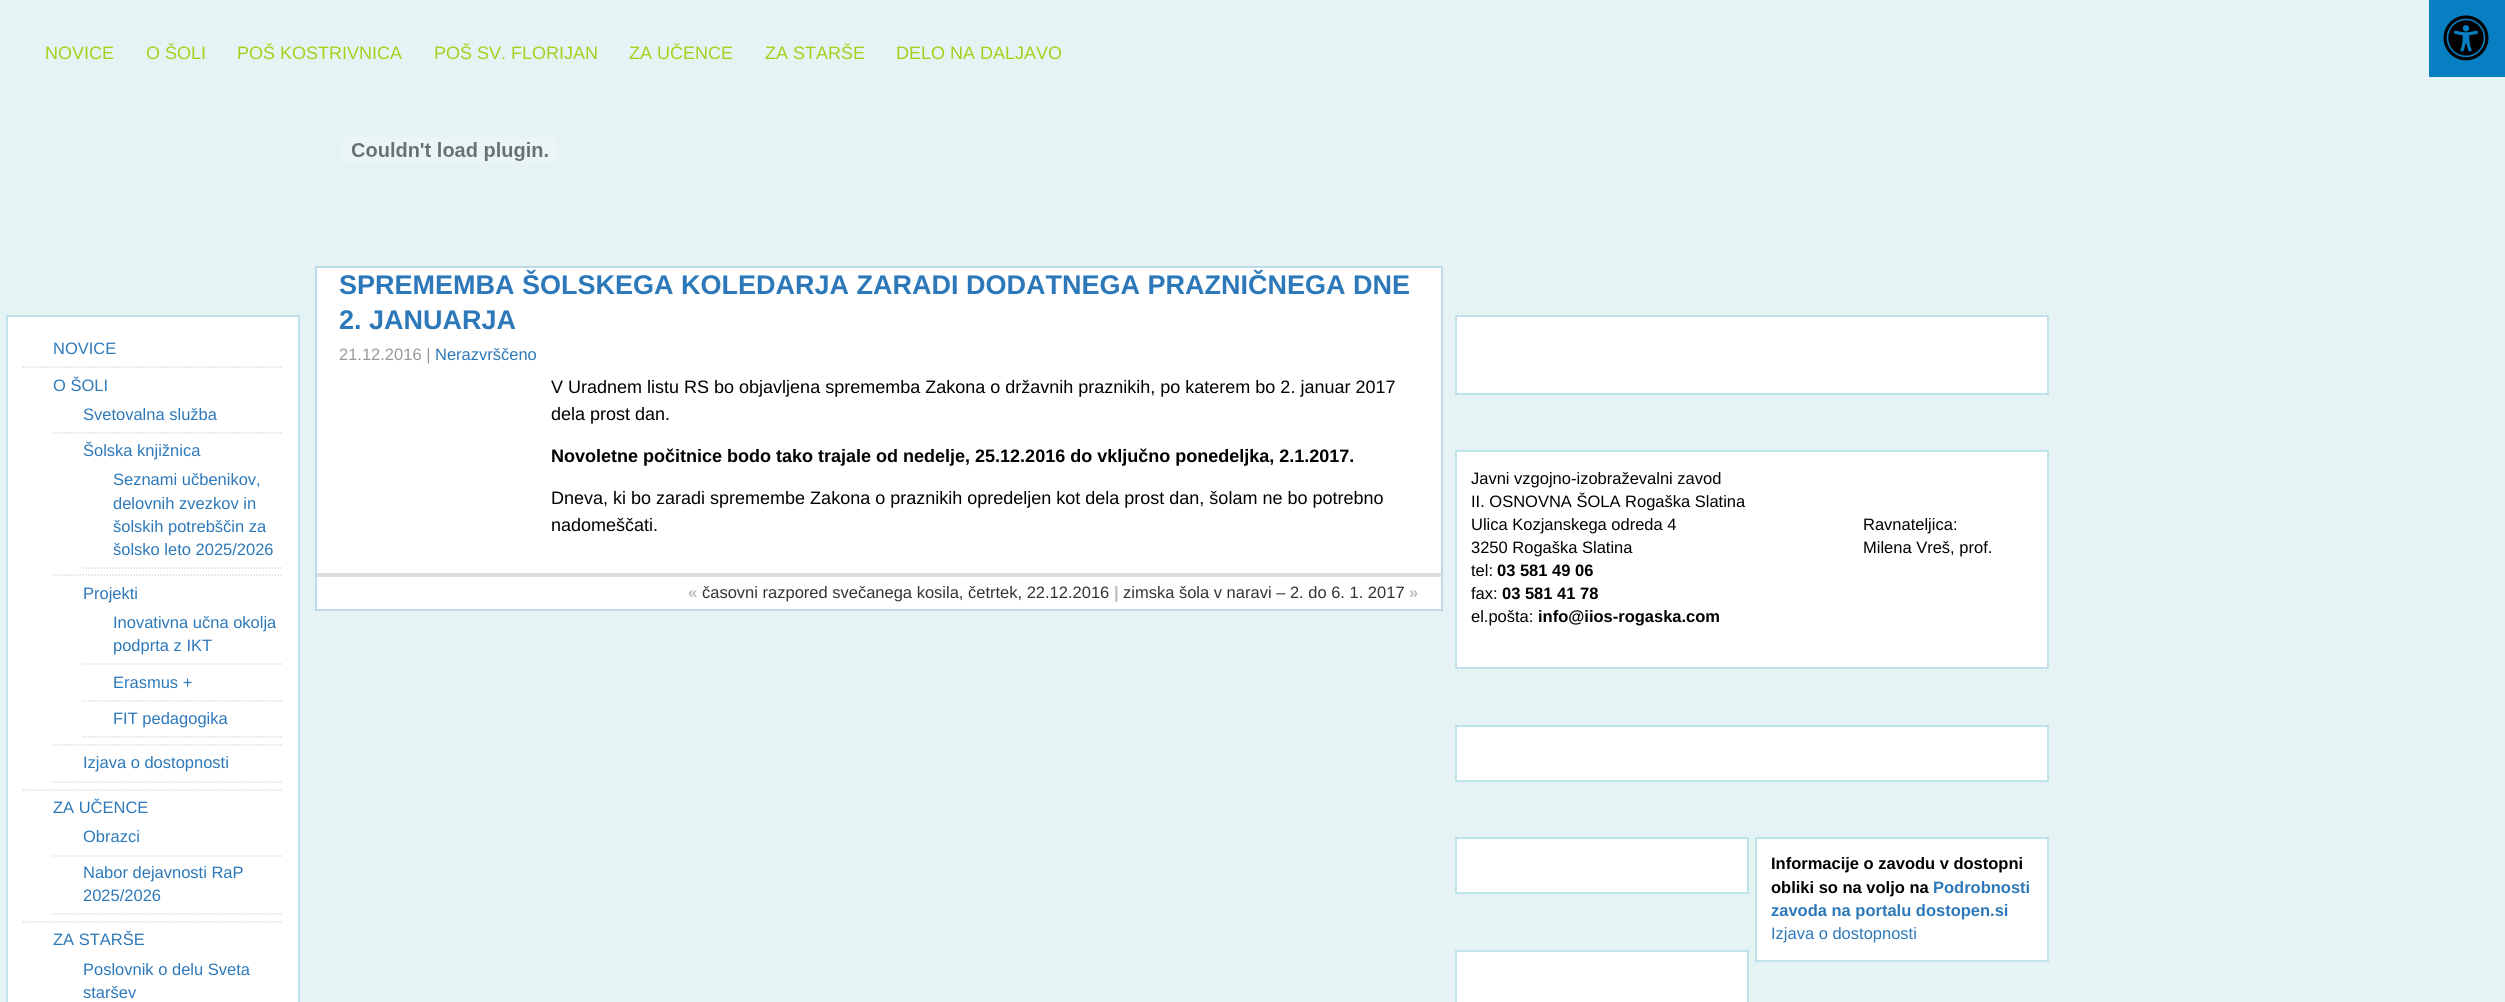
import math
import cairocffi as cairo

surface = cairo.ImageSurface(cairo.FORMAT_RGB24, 2505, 1002)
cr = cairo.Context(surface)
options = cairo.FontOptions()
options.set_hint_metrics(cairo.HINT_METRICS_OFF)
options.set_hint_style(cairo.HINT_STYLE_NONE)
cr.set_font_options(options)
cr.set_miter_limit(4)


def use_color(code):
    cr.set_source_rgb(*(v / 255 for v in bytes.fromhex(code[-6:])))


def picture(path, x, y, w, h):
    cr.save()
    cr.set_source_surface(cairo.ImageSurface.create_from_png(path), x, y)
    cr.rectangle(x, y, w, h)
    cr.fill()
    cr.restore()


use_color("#e6f3f5")
cr.paint()
cr.select_font_face("Liberation Sans")
cr.set_font_size(18)
use_color("#a0d21a")
cr.move_to(45, 59)
cr.show_text("NOVICE")
cr.move_to(146, 59)
cr.show_text("O ŠOLI")
cr.move_to(237, 59)
cr.show_text("POŠ KOSTRIVNICA")
cr.move_to(434, 59)
cr.show_text("POŠ SV. FLORIJAN")
cr.move_to(629, 59)
cr.show_text("ZA UČENCE")
cr.move_to(765, 59)
cr.show_text("ZA STARŠE")
cr.move_to(896, 59)
cr.show_text("DELO NA DALJAVO")
picture("img1.png", 342, 137, 216, 26)
use_color("#ffffff")
cr.rectangle(7, 316, 292, 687)
cr.fill_preserve()
use_color("#bfe3eb")
cr.stroke()
cr.new_path()
cr.move_to(22.5, 367)
cr.line_to(283.5, 367)
use_color("#dddddd")
cr.set_line_width(1.5)
cr.set_dash([1.5, 1.5])
cr.stroke()
cr.set_font_size(16.5)
use_color("#2c78b9")
cr.move_to(53, 354)
cr.show_text("NOVICE")
cr.new_path()
cr.move_to(22.5, 790)
cr.line_to(283.5, 790)
use_color("#dddddd")
cr.stroke()
use_color("#2c78b9")
cr.move_to(53, 391)
cr.show_text("O ŠOLI")
cr.new_path()
cr.move_to(52.5, 433)
cr.line_to(283.5, 433)
use_color("#dddddd")
cr.stroke()
use_color("#2c78b9")
cr.move_to(83, 420)
cr.show_text("Svetovalna služba")
cr.new_path()
cr.move_to(52.5, 575)
cr.line_to(283.5, 575)
use_color("#dddddd")
cr.stroke()
use_color("#2c78b9")
cr.move_to(83, 456)
cr.show_text("Šolska knjižnica")
cr.new_path()
cr.move_to(82.5, 568)
cr.line_to(283.5, 568)
use_color("#dddddd")
cr.stroke()
use_color("#2c78b9")
cr.move_to(113, 485)
cr.show_text("Seznami učbenikov,")
cr.move_to(113, 509)
cr.show_text("delovnih zvezkov in")
cr.move_to(113, 532)
cr.show_text("šolskih potrebščin za")
cr.move_to(113, 555)
cr.show_text("šolsko leto 2025/2026")
cr.new_path()
cr.move_to(52.5, 745)
cr.line_to(283.5, 745)
use_color("#dddddd")
cr.stroke()
use_color("#2c78b9")
cr.move_to(83, 599)
cr.show_text("Projekti")
cr.new_path()
cr.move_to(82.5, 664)
cr.line_to(283.5, 664)
use_color("#dddddd")
cr.stroke()
use_color("#2c78b9")
cr.move_to(113, 628)
cr.show_text("Inovativna učna okolja")
cr.move_to(113, 651)
cr.show_text("podprta z IKT")
cr.new_path()
cr.move_to(82.5, 701)
cr.line_to(283.5, 701)
use_color("#dddddd")
cr.stroke()
use_color("#2c78b9")
cr.move_to(113, 688)
cr.show_text("Erasmus +")
cr.new_path()
cr.move_to(82.5, 737)
cr.line_to(283.5, 737)
use_color("#dddddd")
cr.stroke()
use_color("#2c78b9")
cr.move_to(113, 724)
cr.show_text("FIT pedagogika")
cr.new_path()
cr.move_to(52.5, 782)
cr.line_to(283.5, 782)
use_color("#dddddd")
cr.stroke()
use_color("#2c78b9")
cr.move_to(83, 768)
cr.show_text("Izjava o dostopnosti")
cr.new_path()
cr.move_to(22.5, 922)
cr.line_to(283.5, 922)
use_color("#dddddd")
cr.stroke()
use_color("#2c78b9")
cr.move_to(53, 813)
cr.show_text("ZA UČENCE")
cr.new_path()
cr.move_to(52.5, 856)
cr.line_to(283.5, 856)
use_color("#dddddd")
cr.stroke()
use_color("#2c78b9")
cr.move_to(83, 842)
cr.show_text("Obrazci")
cr.new_path()
cr.move_to(52.5, 914)
cr.line_to(283.5, 914)
use_color("#dddddd")
cr.stroke()
use_color("#2c78b9")
cr.move_to(83, 878)
cr.show_text("Nabor dejavnosti RaP")
cr.move_to(83, 901)
cr.show_text("2025/2026")
cr.move_to(53, 945)
cr.show_text("ZA STARŠE")
cr.move_to(83, 975)
cr.show_text("Poslovnik o delu Sveta")
cr.move_to(83, 998)
cr.show_text("staršev")
use_color("#ffffff")
cr.rectangle(316, 267, 1126, 343)
cr.fill_preserve()
use_color("#bddbe6")
cr.set_line_width(2)
cr.set_dash([])
cr.stroke()
cr.select_font_face("Liberation Sans", cairo.FONT_SLANT_NORMAL, cairo.FONT_WEIGHT_BOLD)
cr.set_font_size(27)
use_color("#2c78b9")
cr.move_to(339, 294)
cr.show_text("SPREMEMBA ŠOLSKEGA KOLEDARJA ZARADI DODATNEGA PRAZNIČNEGA DNE")
cr.move_to(339, 329)
cr.show_text("2. JANUARJA")
cr.select_font_face("Liberation Sans")
cr.set_font_size(16.5)
use_color("#999999")
cr.move_to(339, 360)
cr.show_text("21.12.2016 |")
use_color("#2c78b9")
cr.move_to(435, 360)
cr.show_text("Nerazvrščeno")
cr.set_font_size(18)
use_color("#000000")
cr.move_to(551, 393)
cr.show_text("V Uradnem listu RS bo objavljena sprememba Zakona o državnih praznikih, po katerem bo 2. januar 2017")
cr.move_to(551, 420)
cr.show_text("dela prost dan.")
cr.select_font_face("Liberation Sans", cairo.FONT_SLANT_NORMAL, cairo.FONT_WEIGHT_BOLD)
cr.move_to(551, 462)
cr.show_text("Novoletne počitnice bodo tako trajale od nedelje, 25.12.2016 do vključno ponedeljka, 2.1.2017.")
cr.select_font_face("Liberation Sans")
cr.move_to(551, 504)
cr.show_text("Dneva, ki bo zaradi spremembe Zakona o praznikih opredeljen kot dela prost dan, šolam ne bo potrebno")
cr.move_to(551, 531)
cr.show_text("nadomeščati.")
use_color("#dddddd")
cr.rectangle(317, 573, 1125, 4)
cr.fill()
cr.select_font_face("Liberation Sans", cairo.FONT_SLANT_NORMAL, cairo.FONT_WEIGHT_BOLD)
cr.set_font_size(16.5)
use_color("#bbbbbb")
cr.move_to(688, 598)
cr.show_text("«")
cr.select_font_face("Liberation Sans")
use_color("#333333")
cr.move_to(702, 598)
cr.show_text("časovni razpored svečanega kosila, četrtek, 22.12.2016")
cr.select_font_face("Liberation Sans", cairo.FONT_SLANT_NORMAL, cairo.FONT_WEIGHT_BOLD)
use_color("#bbbbbb")
cr.move_to(1114, 598)
cr.show_text("|")
cr.select_font_face("Liberation Sans")
use_color("#333333")
cr.move_to(1123, 598)
cr.show_text("zimska šola v naravi – 2. do 6. 1. 2017")
cr.select_font_face("Liberation Sans", cairo.FONT_SLANT_NORMAL, cairo.FONT_WEIGHT_BOLD)
use_color("#bbbbbb")
cr.move_to(1409, 598)
cr.show_text("»")
use_color("#ffffff")
cr.rectangle(1456, 316, 592, 78)
cr.fill_preserve()
use_color("#bfe3eb")
cr.stroke()
use_color("#ffffff")
cr.rectangle(1456, 451, 592, 217)
cr.fill_preserve()
use_color("#bfe3eb")
cr.stroke()
cr.select_font_face("Liberation Sans")
use_color("#000000")
cr.move_to(1471, 484)
cr.show_text("Javni vzgojno-izobraževalni zavod")
cr.move_to(1471, 507)
cr.show_text("II. OSNOVNA ŠOLA Rogaška Slatina")
cr.move_to(1471, 530)
cr.show_text("Ulica Kozjanskega odreda 4")
cr.move_to(1471, 553)
cr.show_text("3250 Rogaška Slatina")
cr.move_to(1471, 576)
cr.show_text("tel:")
cr.select_font_face("Liberation Sans", cairo.FONT_SLANT_NORMAL, cairo.FONT_WEIGHT_BOLD)
cr.move_to(1497, 576)
cr.show_text("03 581 49 06")
cr.select_font_face("Liberation Sans")
cr.move_to(1471, 599)
cr.show_text("fax:")
cr.select_font_face("Liberation Sans", cairo.FONT_SLANT_NORMAL, cairo.FONT_WEIGHT_BOLD)
cr.move_to(1502, 599)
cr.show_text("03 581 41 78")
cr.select_font_face("Liberation Sans")
cr.move_to(1471, 622)
cr.show_text("el.pošta:")
cr.select_font_face("Liberation Sans", cairo.FONT_SLANT_NORMAL, cairo.FONT_WEIGHT_BOLD)
cr.move_to(1538, 622)
cr.show_text("info@iios-rogaska.com")
cr.select_font_face("Liberation Sans")
cr.move_to(1863, 530)
cr.show_text("Ravnateljica:")
cr.move_to(1863, 553)
cr.show_text("Milena Vreš, prof.")
use_color("#ffffff")
cr.rectangle(1456, 726, 592, 55)
cr.fill_preserve()
use_color("#bfe3eb")
cr.stroke()
use_color("#ffffff")
cr.rectangle(1456, 838, 292, 55)
cr.fill_preserve()
use_color("#bfe3eb")
cr.stroke()
use_color("#ffffff")
cr.rectangle(1456, 951, 292, 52)
cr.fill_preserve()
use_color("#bfe3eb")
cr.stroke()
use_color("#ffffff")
cr.rectangle(1756, 838, 292, 123)
cr.fill_preserve()
use_color("#bfe3eb")
cr.stroke()
cr.select_font_face("Liberation Sans", cairo.FONT_SLANT_NORMAL, cairo.FONT_WEIGHT_BOLD)
use_color("#000000")
cr.move_to(1771, 869)
cr.show_text("Informacije o zavodu v dostopni")
cr.move_to(1771, 893)
cr.show_text("obliki so na voljo na")
use_color("#2c78b9")
cr.move_to(1933, 893)
cr.show_text("Podrobnosti")
cr.move_to(1771, 916)
cr.show_text("zavoda na portalu dostopen.si")
cr.select_font_face("Liberation Sans")
cr.move_to(1771, 939)
cr.show_text("Izjava o dostopnosti")
use_color("#0780c3")
cr.rectangle(2429, 0, 76, 77)
cr.fill()
picture("img2.png", 2443, 15, 46, 46)
surface.write_to_png("result.png")
